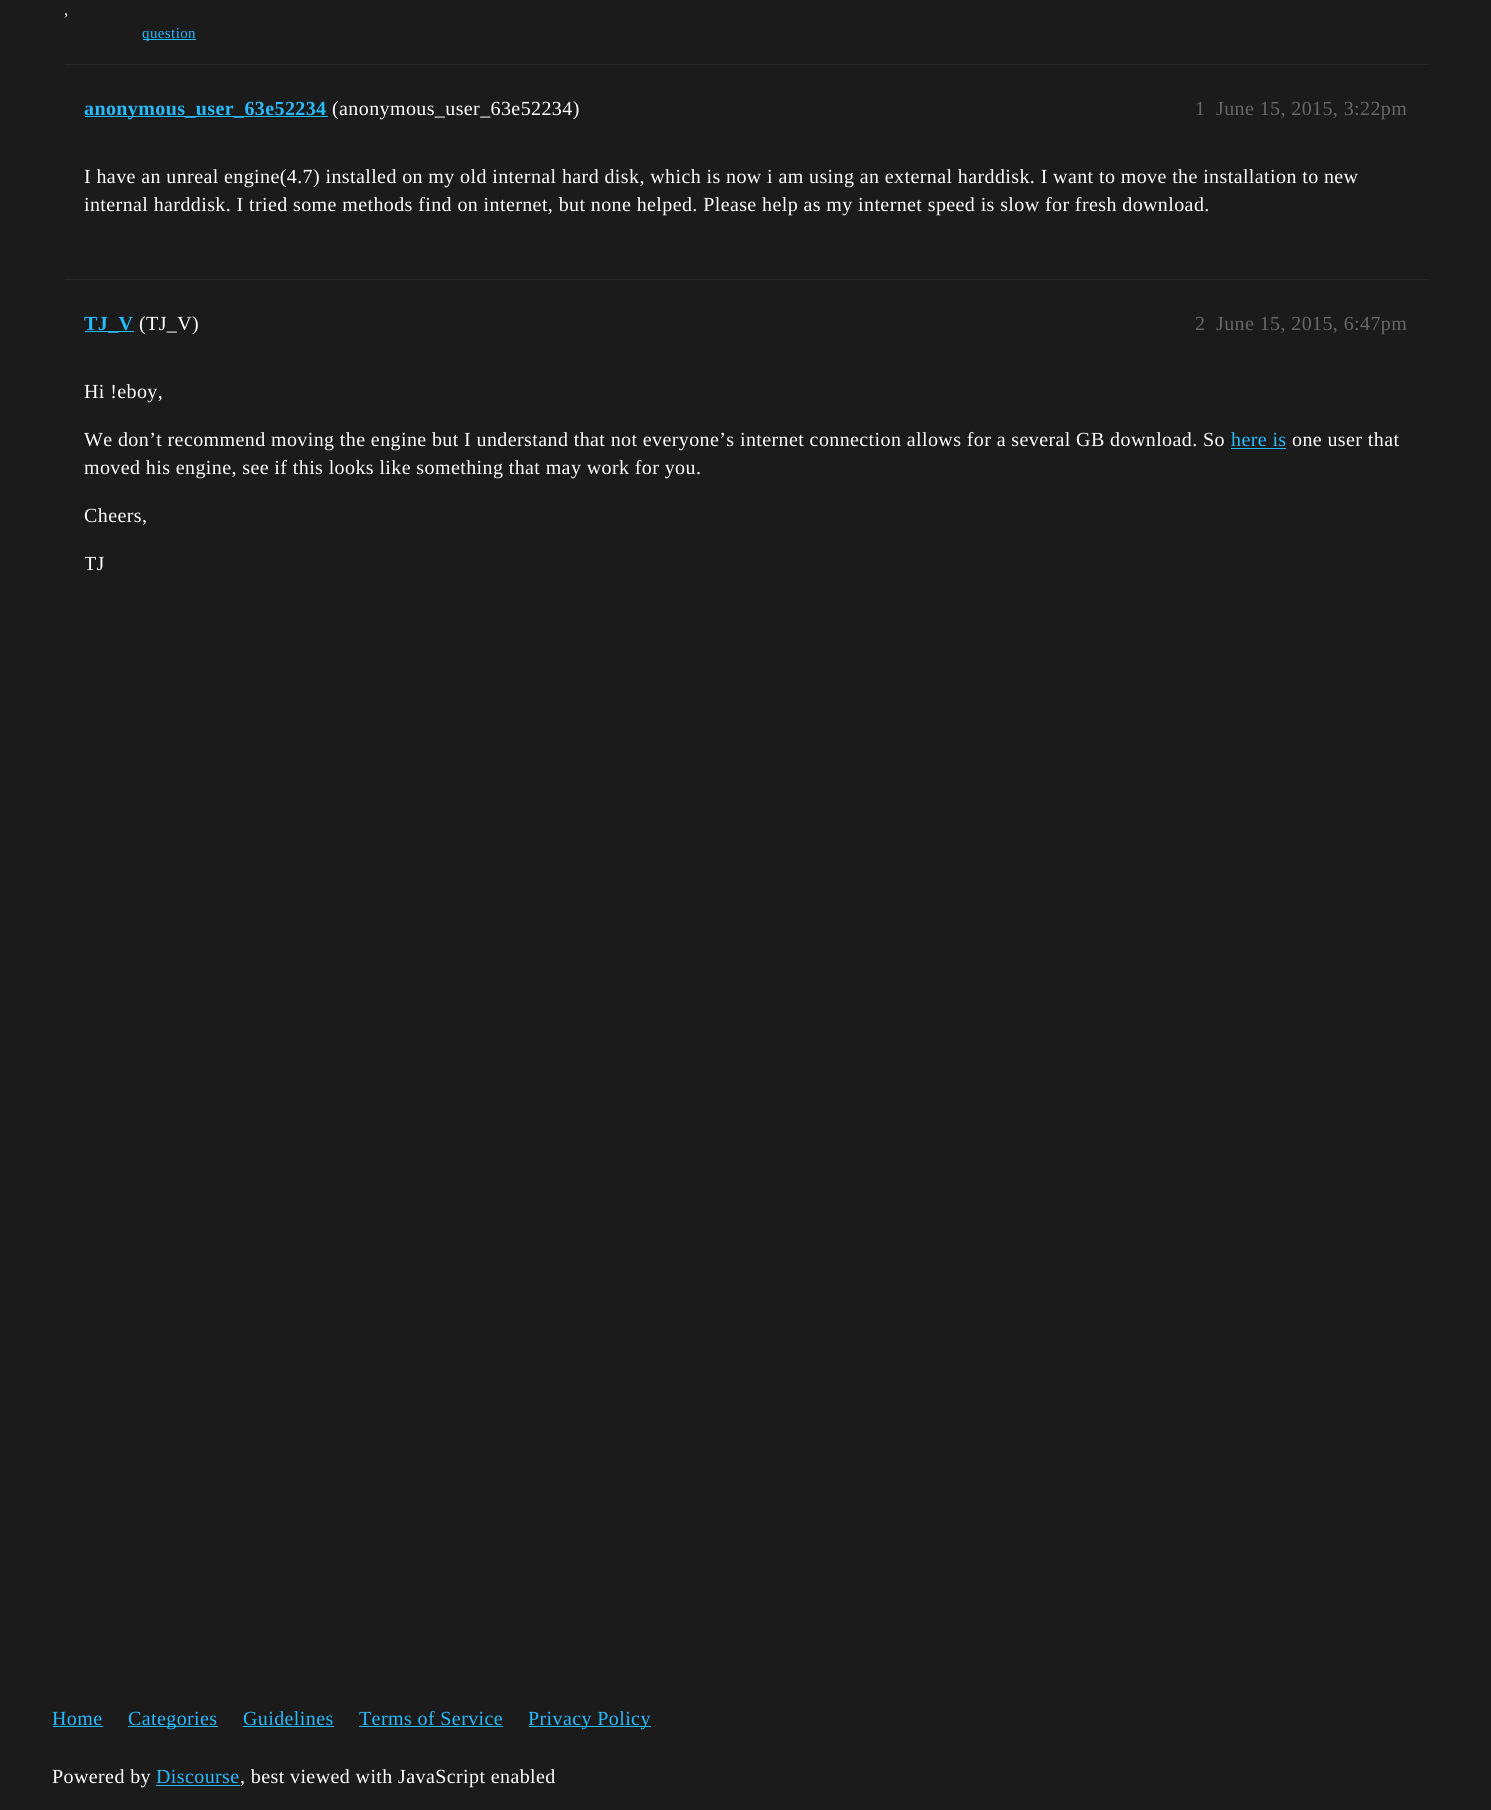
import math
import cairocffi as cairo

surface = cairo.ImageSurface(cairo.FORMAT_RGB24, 1491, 1810)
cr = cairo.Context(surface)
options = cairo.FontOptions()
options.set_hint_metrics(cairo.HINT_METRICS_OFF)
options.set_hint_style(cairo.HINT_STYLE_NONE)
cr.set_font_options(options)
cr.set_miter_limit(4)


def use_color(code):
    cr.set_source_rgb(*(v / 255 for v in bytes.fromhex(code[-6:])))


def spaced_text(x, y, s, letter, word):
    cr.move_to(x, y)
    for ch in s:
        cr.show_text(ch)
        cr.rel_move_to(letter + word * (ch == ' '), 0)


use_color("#1b1b1b")
cr.paint()
cr.select_font_face("Liberation Serif")
cr.set_font_size(17)
use_color("#ffffff")
spaced_text(64, 15, ",", 0.4, 0)
use_color("#26bbff")
cr.rectangle(143, 39, 53, 1)
cr.fill()
cr.set_font_size(15)
spaced_text(142, 38, "question", 0.4, 0)
use_color("#28282c")
cr.rectangle(65, 64, 1363, 1)
cr.fill()
use_color("#26bbff")
cr.rectangle(85, 116, 243, 1)
cr.fill()
cr.select_font_face("Liberation Serif", cairo.FONT_SLANT_NORMAL, cairo.FONT_WEIGHT_BOLD)
cr.set_font_size(20)
spaced_text(84, 115, "anonymous_user_63e52234", 0.4, 0)
cr.select_font_face("Liberation Serif")
use_color("#ffffff")
spaced_text(332, 115, "(anonymous_user_63e52234)", 0.4, 0)
use_color("#666666")
spaced_text(1195, 115, "1", 0.4, 0)
spaced_text(1216, 115, "June 15, 2015, 3:22pm", 0.4, 0)
use_color("#ffffff")
spaced_text(84, 183, "I have an unreal engine(4.7) installed on my old internal hard disk, which is now i am using an external harddisk. I want to move the installation to new", 0.4, 0)
spaced_text(84, 211, "internal harddisk. I tried some methods find on internet, but none helped. Please help as my internet speed is slow for fresh download.", 0.4, 0)
use_color("#28282c")
cr.rectangle(65, 279, 1363, 1)
cr.fill()
use_color("#26bbff")
cr.rectangle(85, 331, 49, 1)
cr.fill()
cr.select_font_face("Liberation Serif", cairo.FONT_SLANT_NORMAL, cairo.FONT_WEIGHT_BOLD)
spaced_text(84, 330, "TJ_V", 0.4, 0)
cr.select_font_face("Liberation Serif")
use_color("#ffffff")
spaced_text(139, 330, "(TJ_V)", 0.4, 0)
use_color("#666666")
spaced_text(1195, 330, "2", 0.4, 0)
spaced_text(1216, 330, "June 15, 2015, 6:47pm", 0.4, 0)
use_color("#ffffff")
spaced_text(84, 398, "Hi !eboy,", 0.4, 0)
spaced_text(84, 446, "We don’t recommend moving the engine but I understand that not everyone’s internet connection allows for a several GB download. So", 0.4, 0)
use_color("#26bbff")
spaced_text(1231, 446, "here is", 0.4, 0)
cr.rectangle(1231, 448, 55, 1)
cr.fill()
use_color("#ffffff")
spaced_text(1292, 446, "one user that", 0.4, 0)
spaced_text(84, 474, "moved his engine, see if this looks like something that may work for you.", 0.4, 0)
spaced_text(84, 522, "Cheers,", 0.4, 0)
cr.save()
cr.rectangle(85, 359, 1323, 240)
cr.clip()
spaced_text(84, 570, "TJ", 0.4, 0)
cr.restore()
use_color("#26bbff")
spaced_text(52, 1725, "Home", 0.4, 0)
cr.rectangle(53, 1726, 50, 1)
cr.fill()
cr.rectangle(128, 1726, 90, 1)
cr.fill()
spaced_text(128, 1725, "Categories", 0.4, 0)
spaced_text(243, 1725, "Guidelines", 0.4, 0)
cr.rectangle(243, 1726, 91, 1)
cr.fill()
spaced_text(359, 1725, "Terms of Service", 0.4, 0)
cr.rectangle(359, 1726, 144, 1)
cr.fill()
cr.rectangle(529, 1726, 122, 1)
cr.fill()
spaced_text(528, 1725, "Privacy Policy", 0.4, 0)
use_color("#ffffff")
spaced_text(52, 1783, "Powered by", 0.4, 0)
use_color("#26bbff")
spaced_text(156, 1783, "Discourse", 0.4, 0)
cr.rectangle(156, 1785, 84, 1)
cr.fill()
use_color("#ffffff")
spaced_text(240, 1783, ", best viewed with JavaScript enabled", 0.4, 0)
surface.write_to_png("result.png")
